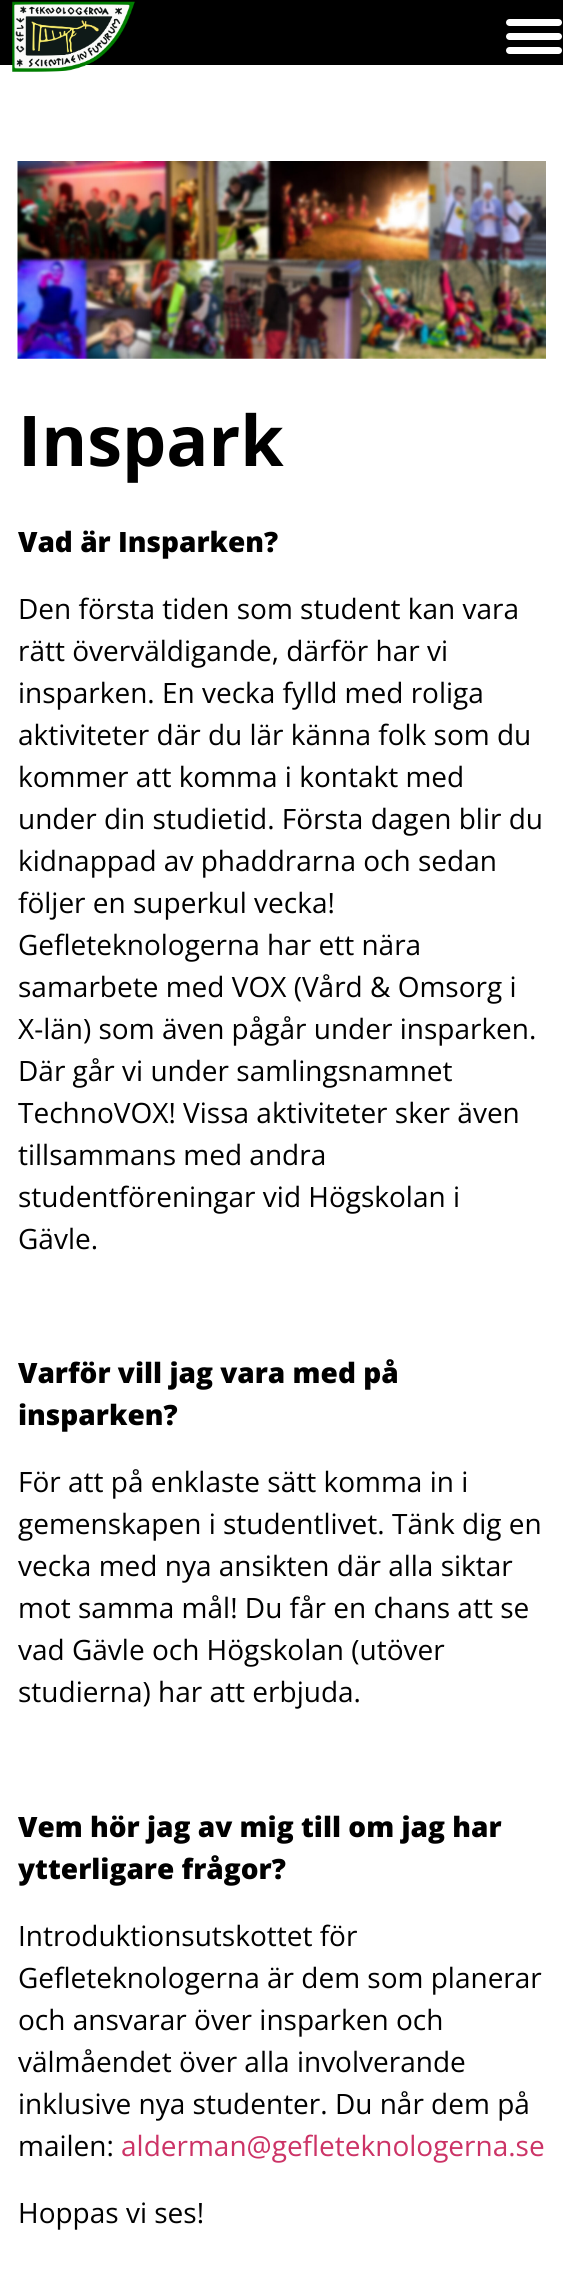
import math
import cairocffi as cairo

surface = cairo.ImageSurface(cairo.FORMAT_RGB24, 563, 2273)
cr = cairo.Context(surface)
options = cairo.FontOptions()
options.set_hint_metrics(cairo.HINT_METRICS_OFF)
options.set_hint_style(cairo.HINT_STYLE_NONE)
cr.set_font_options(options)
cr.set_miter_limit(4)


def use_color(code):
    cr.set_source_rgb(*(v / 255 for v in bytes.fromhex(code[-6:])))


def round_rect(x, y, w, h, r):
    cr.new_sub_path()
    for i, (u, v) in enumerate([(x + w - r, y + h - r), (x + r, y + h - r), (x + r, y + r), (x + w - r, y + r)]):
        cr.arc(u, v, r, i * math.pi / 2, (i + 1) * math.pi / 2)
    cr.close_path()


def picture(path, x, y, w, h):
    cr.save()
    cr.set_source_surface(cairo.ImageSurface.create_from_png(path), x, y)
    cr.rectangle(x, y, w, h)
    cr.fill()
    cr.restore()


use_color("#ffffff")
cr.paint()
use_color("#000000")
cr.rectangle(0, 0, 563, 65)
cr.fill()
picture("img1.png", 12, 1, 123, 71)
use_color("#ffffff")
round_rect(506, 19, 56, 7, 3.5)
cr.fill()
round_rect(506, 33, 56, 7, 3.5)
cr.fill()
round_rect(506, 47, 56, 7, 3.5)
cr.fill()
picture("img2.png", 17, 161, 529, 198)
cr.select_font_face("Open Sans", cairo.FONT_SLANT_NORMAL, cairo.FONT_WEIGHT_BOLD)
cr.set_font_size(70)
use_color("#000000")
cr.move_to(18, 466)
cr.show_text("Inspark")
cr.select_font_face("Open Sans ExtraBold")
cr.set_font_size(28)
cr.move_to(18, 552)
cr.show_text("Vad är Insparken?")
cr.select_font_face("Open Sans")
cr.move_to(18, 619)
cr.show_text("Den första tiden som student kan vara")
cr.move_to(18, 661)
cr.show_text("rätt överväldigande, därför har vi")
cr.move_to(18, 703)
cr.show_text("insparken. En vecka fylld med roliga")
cr.move_to(18, 745)
cr.show_text("aktiviteter där du lär känna folk som du")
cr.move_to(18, 787)
cr.show_text("kommer att komma i kontakt med")
cr.move_to(18, 829)
cr.show_text("under din studietid. Första dagen blir du")
cr.move_to(18, 871)
cr.show_text("kidnappad av phaddrarna och sedan")
cr.move_to(18, 913)
cr.show_text("följer en superkul vecka!")
cr.move_to(18, 955)
cr.show_text("Gefleteknologerna har ett nära")
cr.move_to(18, 997)
cr.show_text("samarbete med VOX (Vård & Omsorg i")
cr.move_to(18, 1039)
cr.show_text("X-län) som även pågår under insparken.")
cr.move_to(18, 1081)
cr.show_text("Där går vi under samlingsnamnet")
cr.move_to(18, 1123)
cr.show_text("TechnoVOX! Vissa aktiviteter sker även")
cr.move_to(18, 1165)
cr.show_text("tillsammans med andra")
cr.move_to(18, 1207)
cr.show_text("studentföreningar vid Högskolan i")
cr.move_to(18, 1249)
cr.show_text("Gävle.")
cr.select_font_face("Open Sans ExtraBold")
cr.move_to(18, 1383)
cr.show_text("Varför vill jag vara med på")
cr.move_to(18, 1425)
cr.show_text("insparken?")
cr.select_font_face("Open Sans")
cr.move_to(18, 1492)
cr.show_text("För att på enklaste sätt komma in i")
cr.move_to(18, 1534)
cr.show_text("gemenskapen i studentlivet. Tänk dig en")
cr.move_to(18, 1576)
cr.show_text("vecka med nya ansikten där alla siktar")
cr.move_to(18, 1618)
cr.show_text("mot samma mål! Du får en chans att se")
cr.move_to(18, 1660)
cr.show_text("vad Gävle och Högskolan (utöver")
cr.move_to(18, 1702)
cr.show_text("studierna) har att erbjuda.")
cr.select_font_face("Open Sans ExtraBold")
cr.move_to(18, 1837)
cr.show_text("Vem hör jag av mig till om jag har")
cr.move_to(18, 1879)
cr.show_text("ytterligare frågor?")
cr.select_font_face("Open Sans")
cr.move_to(18, 1946)
cr.show_text("Introduktionsutskottet för")
cr.move_to(18, 1988)
cr.show_text("Gefleteknologerna är dem som planerar")
cr.move_to(18, 2030)
cr.show_text("och ansvarar över insparken och")
cr.move_to(18, 2072)
cr.show_text("välmåendet över alla involverande")
cr.move_to(18, 2114)
cr.show_text("inklusive nya studenter. Du når dem på")
cr.move_to(18, 2156)
cr.show_text("mailen:")
use_color("#cc3366")
cr.move_to(121, 2156)
cr.show_text("alderman@gefleteknologerna.se")
use_color("#000000")
cr.move_to(18, 2223)
cr.show_text("Hoppas vi ses!")
surface.write_to_png("result.png")
